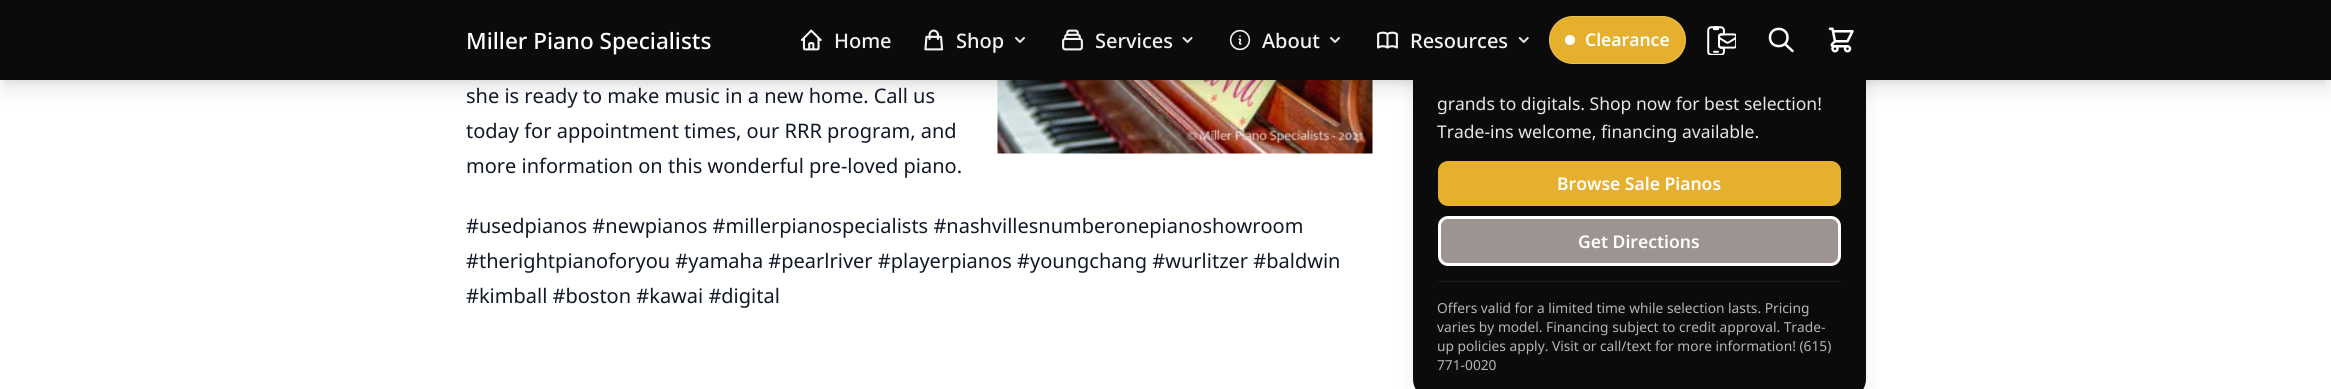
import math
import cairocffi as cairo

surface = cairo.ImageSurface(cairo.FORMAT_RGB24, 2331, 389)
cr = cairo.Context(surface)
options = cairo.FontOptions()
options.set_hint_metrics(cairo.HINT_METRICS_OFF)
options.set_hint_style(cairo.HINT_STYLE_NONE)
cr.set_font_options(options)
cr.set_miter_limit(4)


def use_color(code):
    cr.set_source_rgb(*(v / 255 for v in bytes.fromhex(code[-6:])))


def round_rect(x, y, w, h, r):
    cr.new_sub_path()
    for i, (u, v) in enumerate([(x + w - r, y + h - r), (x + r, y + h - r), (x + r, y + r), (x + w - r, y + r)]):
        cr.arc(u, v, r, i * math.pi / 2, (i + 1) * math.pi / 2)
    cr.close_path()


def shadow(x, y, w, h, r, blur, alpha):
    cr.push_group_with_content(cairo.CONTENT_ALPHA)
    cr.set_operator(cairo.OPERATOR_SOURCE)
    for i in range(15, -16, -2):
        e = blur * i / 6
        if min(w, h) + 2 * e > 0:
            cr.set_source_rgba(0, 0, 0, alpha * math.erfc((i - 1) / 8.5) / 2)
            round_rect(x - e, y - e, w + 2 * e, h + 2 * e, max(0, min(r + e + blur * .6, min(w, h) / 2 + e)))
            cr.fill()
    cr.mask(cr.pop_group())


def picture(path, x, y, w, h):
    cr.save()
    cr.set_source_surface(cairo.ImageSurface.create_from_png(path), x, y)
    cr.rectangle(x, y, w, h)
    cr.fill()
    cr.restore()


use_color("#ffffff")
cr.paint()
picture("img11.png", 997, 80, 376, 74)
use_color("#000000")
shadow(1416, -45, 447, 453, 16, 9.5, 0.1)
use_color("#0b0b0b")
round_rect(1413, -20, 453, 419, 20)
cr.fill()
use_color("#000000")
shadow(5, 10, 2321, 70, 0, 4, 0.1)
shadow(4, 16, 2324, 73, 0, 9.5, 0.1)
use_color("#0b0b0b")
cr.rectangle(0, 0, 2331, 80)
cr.fill()
cr.select_font_face("Noto Sans Medium")
cr.set_font_size(22.5)
use_color("#ffffff")
cr.move_to(466, 49)
cr.show_text("Miller Piano Specialists")
picture("img1.png", 800, 29, 22, 22)
cr.set_font_size(20)
use_color("#f3f4f6")
cr.move_to(834, 48)
cr.show_text("Home")
picture("img2.png", 924, 29, 20, 22)
cr.move_to(956, 48)
cr.show_text("Shop")
picture("img3.png", 1015, 37, 10, 6)
picture("img4.png", 1062, 29, 21, 22)
cr.move_to(1095, 48)
cr.show_text("Services")
picture("img5.png", 1182, 37, 11, 6)
picture("img6.png", 1229, 29, 22, 22)
cr.move_to(1262, 48)
cr.show_text("About")
picture("img3.png", 1330, 37, 10, 6)
picture("img7.png", 1377, 31, 21, 18)
cr.move_to(1410, 48)
cr.show_text("Resources")
picture("img8.png", 1518, 37, 11, 6)
use_color("#e6af2e")
round_rect(1549, 16, 137, 48, 24)
cr.fill()
round_rect(1549.5, 16.5, 136, 47, 23.5)
cr.set_source_rgba(1, 1, 1, 0.2)
cr.set_line_width(1)
cr.stroke()
use_color("#ffffff")
cr.arc(1570, 40, 5, 0, 2 * math.pi)
cr.fill()
cr.select_font_face("Noto Sans SemiBold")
cr.set_font_size(17.5)
cr.move_to(1585, 46)
cr.show_text("Clearance")
picture("img9.png", 1707, 26, 29, 29)
cr.new_path()
cr.move_to(1792.5, 51)
cr.line_to(1785, 44)
cr.move_to(1787.5, 37.5)
cr.curve_to(1787.5, 49, 1770, 49, 1770, 37.5)
cr.curve_to(1770, 26, 1787.5, 26, 1787.5, 37.5)
cr.close_path()
cr.set_line_width(2.5)
cr.set_line_cap(cairo.LINE_CAP_ROUND)
cr.set_line_join(cairo.LINE_JOIN_ROUND)
cr.stroke()
picture("img10.png", 1828, 27, 26, 26)
cr.select_font_face("Noto Sans")
cr.set_font_size(20)
use_color("#111827")
cr.move_to(466, 103)
cr.show_text("she is ready to make music in a new home. Call us")
cr.move_to(466, 138)
cr.show_text("today for appointment times, our RRR program, and")
cr.move_to(466, 173)
cr.show_text("more information on this wonderful pre-loved piano.")
cr.move_to(466, 233)
cr.show_text("#usedpianos #newpianos #millerpianospecialists #nashvillesnumberonepianoshowroom")
cr.move_to(466, 268)
cr.show_text("#therightpianoforyou #yamaha #pearlriver #playerpianos #youngchang #wurlitzer #baldwin")
cr.move_to(466, 303)
cr.show_text("#kimball #boston #kawai #digital")
cr.set_font_size(17.5)
use_color("#e7e7e7")
cr.move_to(1437, 110)
cr.show_text("grands to digitals. Shop now for best selection!")
cr.move_to(1437, 138)
cr.show_text("Trade-ins welcome, financing available.")
use_color("#e6af2e")
round_rect(1438, 161, 403, 45, 10)
cr.fill()
cr.select_font_face("Noto Sans SemiBold")
use_color("#ffffff")
cr.move_to(1557, 190)
cr.show_text("Browse Sale Pianos")
use_color("#9d9491")
round_rect(1439.5, 217.5, 400, 47, 8.5)
cr.fill_preserve()
use_color("#ffffff")
cr.set_line_width(3)
cr.set_line_cap(cairo.LINE_CAP_BUTT)
cr.set_line_join(cairo.LINE_JOIN_MITER)
cr.stroke()
cr.move_to(1578, 248)
cr.show_text("Get Directions")
use_color("#1c1c1c")
cr.rectangle(1438, 281, 403, 1)
cr.fill()
cr.select_font_face("Noto Sans")
cr.set_font_size(13.75)
use_color("#b6b6b6")
cr.move_to(1437, 313)
cr.show_text("Offers valid for a limited time while selection lasts. Pricing")
cr.move_to(1437, 332)
cr.show_text("varies by model. Financing subject to credit approval. Trade-")
cr.move_to(1437, 351)
cr.show_text("up policies apply. Visit or call/text for more information! (615)")
cr.move_to(1437, 370)
cr.show_text("771-0020")
surface.write_to_png("result.png")
